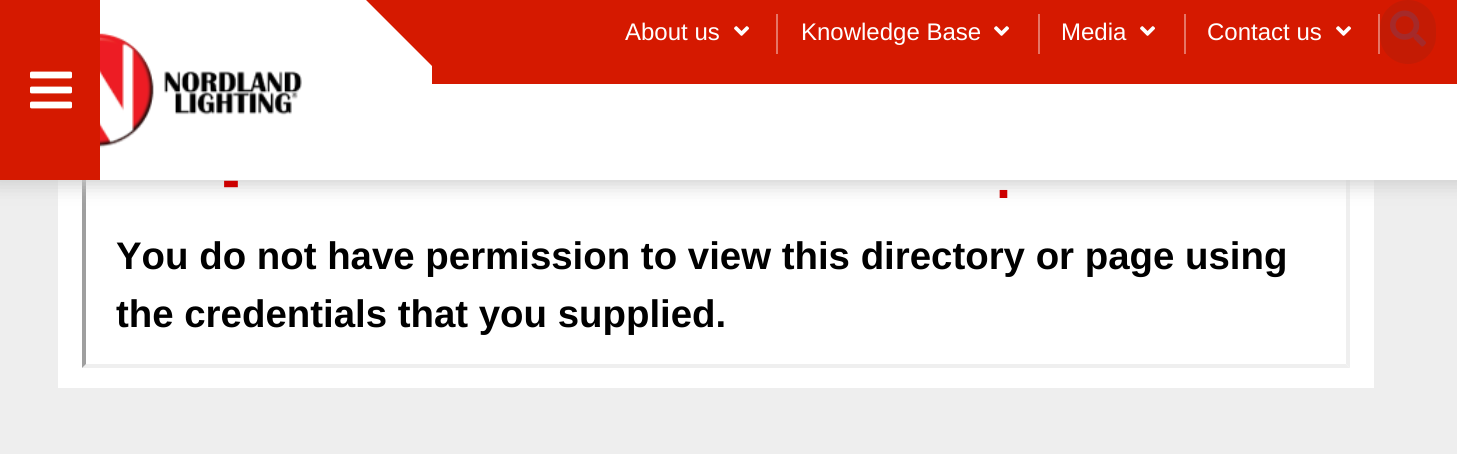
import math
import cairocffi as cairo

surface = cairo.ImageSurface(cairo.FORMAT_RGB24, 1457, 454)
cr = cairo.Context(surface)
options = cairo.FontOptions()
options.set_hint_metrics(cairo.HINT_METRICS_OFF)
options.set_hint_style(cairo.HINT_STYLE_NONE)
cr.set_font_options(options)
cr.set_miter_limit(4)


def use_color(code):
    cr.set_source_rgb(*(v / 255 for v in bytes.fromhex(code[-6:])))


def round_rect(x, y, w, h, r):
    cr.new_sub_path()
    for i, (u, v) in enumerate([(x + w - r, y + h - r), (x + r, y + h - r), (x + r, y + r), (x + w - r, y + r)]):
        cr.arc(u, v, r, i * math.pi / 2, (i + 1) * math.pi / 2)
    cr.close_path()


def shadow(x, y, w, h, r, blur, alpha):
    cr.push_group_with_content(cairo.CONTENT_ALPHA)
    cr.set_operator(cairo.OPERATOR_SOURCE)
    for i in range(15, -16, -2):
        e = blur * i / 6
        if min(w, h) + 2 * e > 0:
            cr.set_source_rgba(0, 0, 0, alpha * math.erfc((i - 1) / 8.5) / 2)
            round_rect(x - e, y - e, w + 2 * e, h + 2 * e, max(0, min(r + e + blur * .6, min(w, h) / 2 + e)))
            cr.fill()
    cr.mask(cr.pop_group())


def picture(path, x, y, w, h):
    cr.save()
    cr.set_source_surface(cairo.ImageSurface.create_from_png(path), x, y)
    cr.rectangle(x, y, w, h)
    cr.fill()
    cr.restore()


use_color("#eeeeee")
cr.paint()
use_color("#ffffff")
cr.rectangle(58, 180, 1316, 208)
cr.fill()
use_color("#efefef")
cr.new_path()
cr.move_to(1350, 148)
cr.line_to(1350, 368)
cr.line_to(1346, 364)
cr.line_to(1346, 152)
cr.close_path()
cr.fill()
cr.new_path()
cr.move_to(1350, 368)
cr.line_to(82, 368)
cr.line_to(86, 364)
cr.line_to(1346, 364)
cr.close_path()
cr.fill()
use_color("#9f9f9f")
cr.new_path()
cr.move_to(82, 368)
cr.line_to(82, 148)
cr.line_to(86, 152)
cr.line_to(86, 364)
cr.close_path()
cr.fill()
use_color("#cccccc")
shadow(-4, -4, 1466, 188, 0, 10, 1)
use_color("#ffffff")
cr.rectangle(100, 0, 1357, 180)
cr.fill()
picture("img1.png", 100, 33, 202, 115)
use_color("#d51900")
cr.rectangle(0, 0, 100, 180)
cr.fill()
picture("img2.png", 30, 71, 42, 38)
cr.rectangle(432, 0, 1025, 84)
cr.fill()
cr.new_path()
cr.move_to(432, 0)
cr.line_to(432, 66)
cr.line_to(366, 0)
cr.close_path()
cr.fill()
cr.select_font_face("Liberation Sans")
cr.set_font_size(24)
use_color("#ffffff")
cr.move_to(625, 40)
cr.show_text("About us")
picture("img3.png", 734, 26, 15, 10)
use_color("#e67566")
cr.rectangle(776, 14, 2, 40)
cr.fill()
use_color("#ffffff")
cr.move_to(801, 40)
cr.show_text("Knowledge Base")
picture("img3.png", 994, 26, 15, 10)
use_color("#e67566")
cr.rectangle(1038, 14, 2, 40)
cr.fill()
use_color("#ffffff")
cr.move_to(1061, 40)
cr.show_text("Media")
picture("img3.png", 1140, 26, 15, 10)
use_color("#e67566")
cr.rectangle(1184, 14, 2, 40)
cr.fill()
use_color("#ffffff")
cr.move_to(1207, 40)
cr.show_text("Contact us")
picture("img3.png", 1336, 26, 15, 10)
use_color("#e67566")
cr.rectangle(1378, 14, 2, 40)
cr.fill()
use_color("#c41b04")
round_rect(1380, 0, 56, 64, 28)
cr.fill()
picture("img4.png", 1390, 10, 36, 37)
cr.select_font_face("Liberation Sans", cairo.FONT_SLANT_NORMAL, cairo.FONT_WEIGHT_BOLD)
cr.set_font_size(54)
use_color("#cc0000")
cr.move_to(222, 198)
cr.show_text("-")
cr.move_to(996, 198)
cr.show_text(".")
cr.set_font_size(38.4)
use_color("#000000")
cr.move_to(116, 269)
cr.show_text("You do not have permission to view this directory or page using")
cr.move_to(116, 327)
cr.show_text("the credentials that you supplied.")
surface.write_to_png("result.png")
